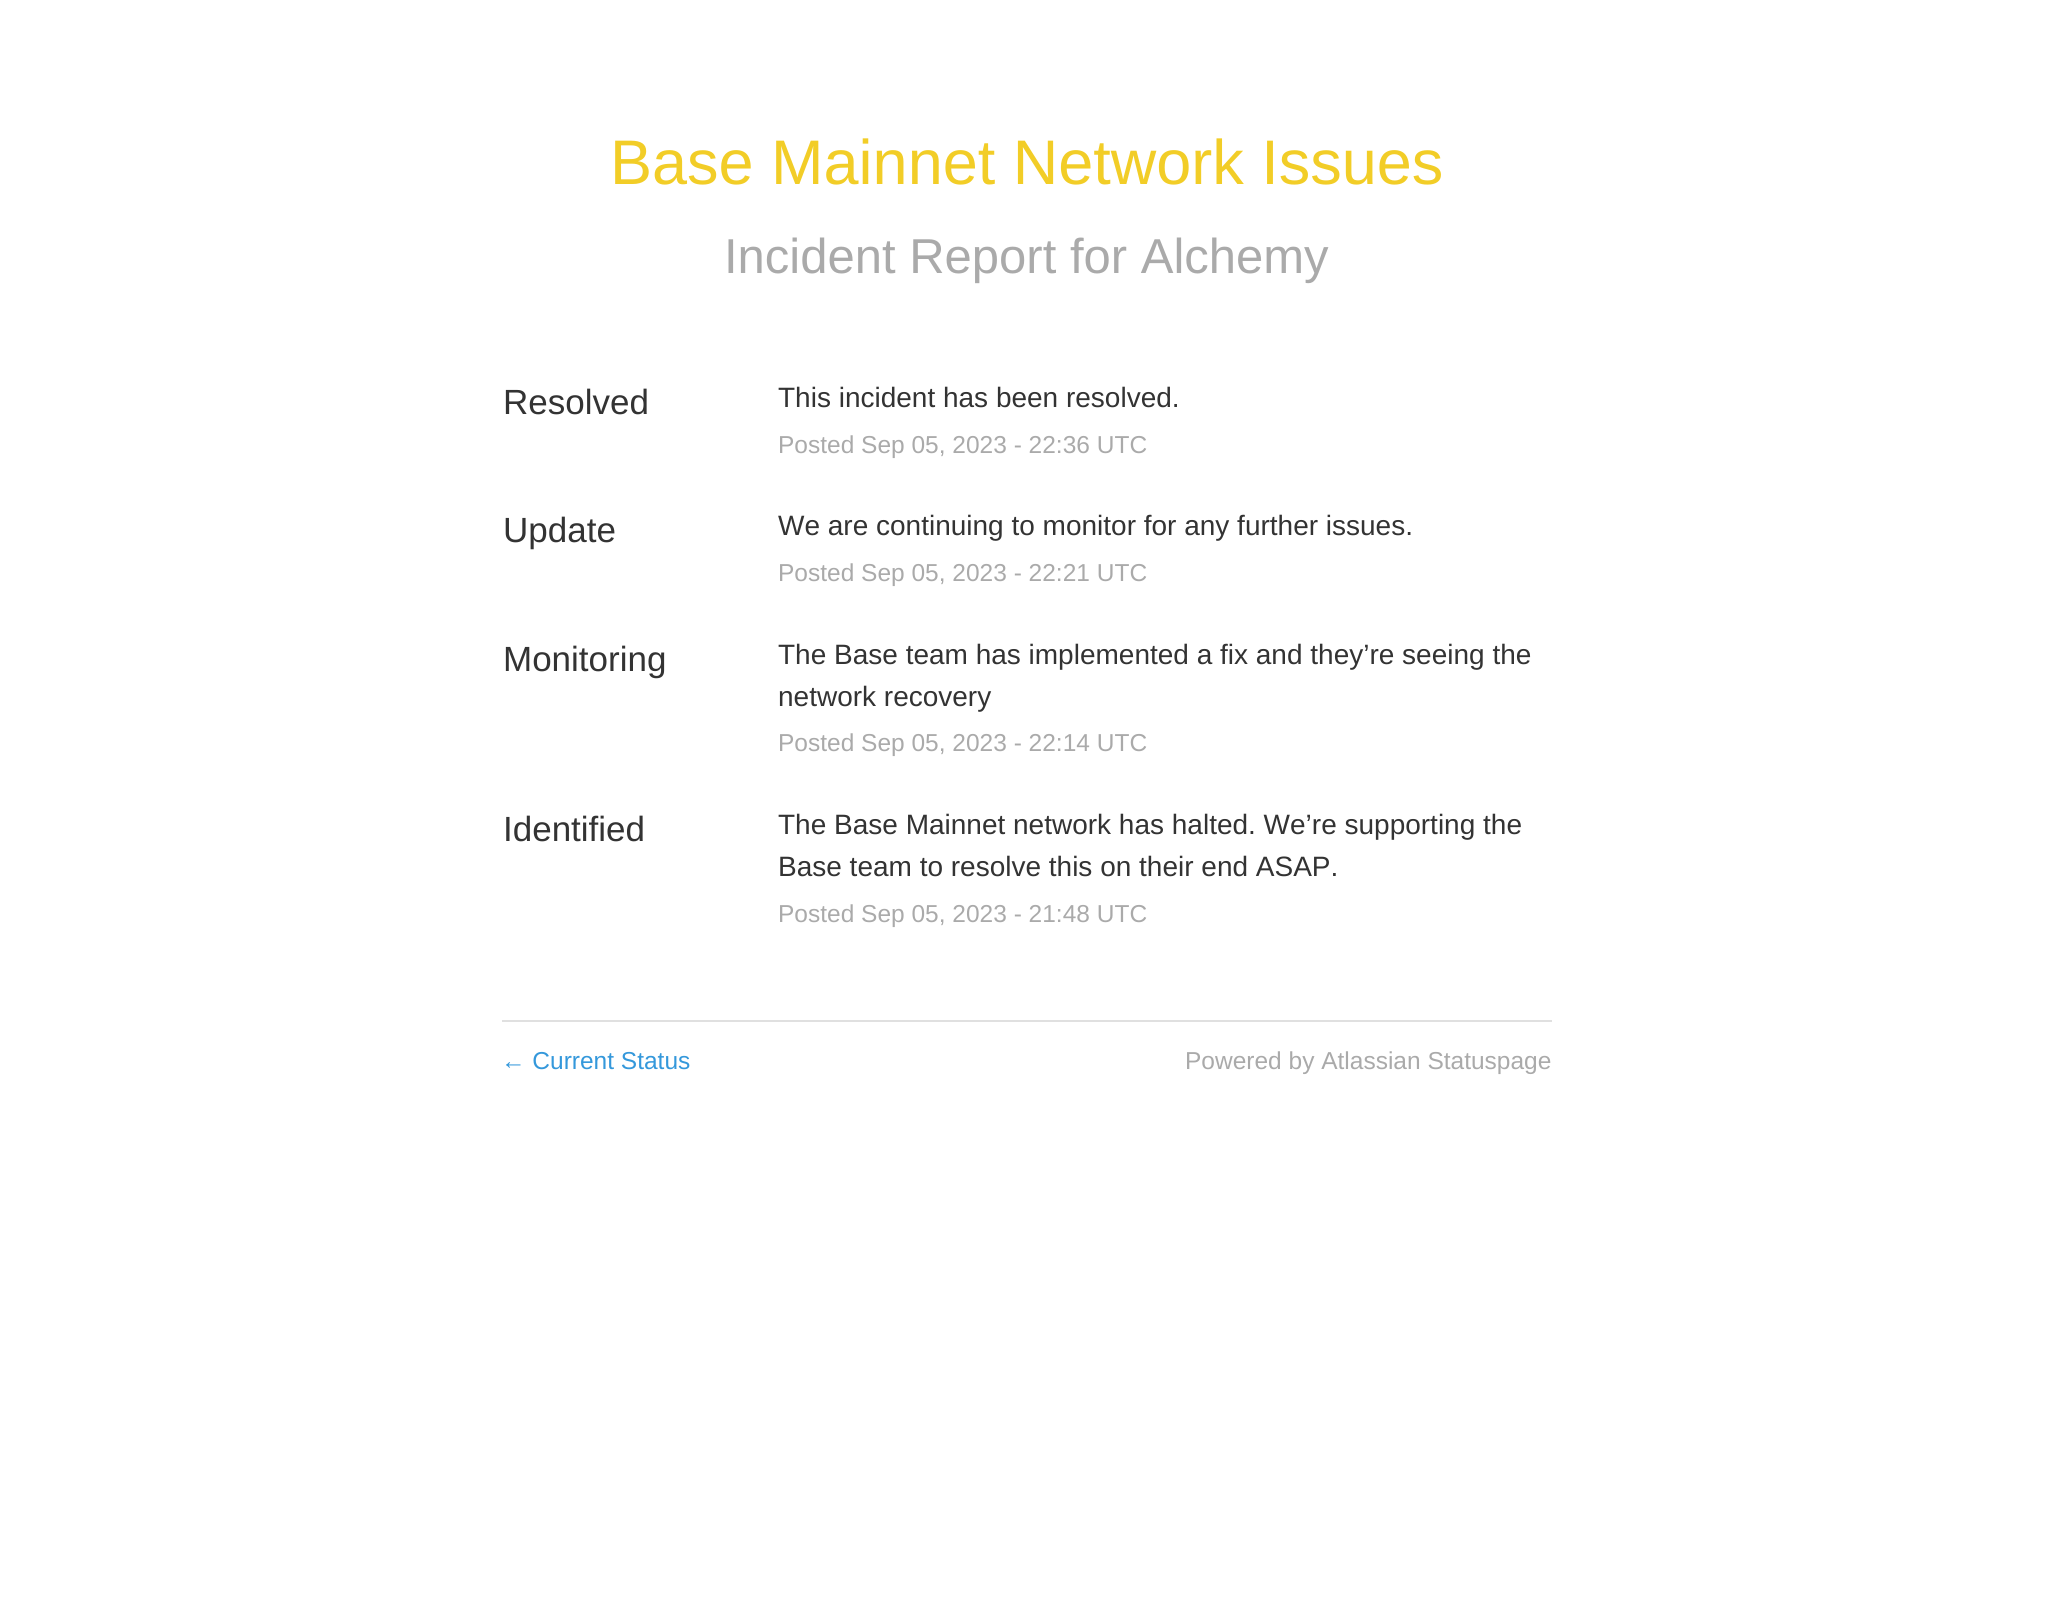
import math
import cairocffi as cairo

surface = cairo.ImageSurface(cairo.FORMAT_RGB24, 2052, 1616)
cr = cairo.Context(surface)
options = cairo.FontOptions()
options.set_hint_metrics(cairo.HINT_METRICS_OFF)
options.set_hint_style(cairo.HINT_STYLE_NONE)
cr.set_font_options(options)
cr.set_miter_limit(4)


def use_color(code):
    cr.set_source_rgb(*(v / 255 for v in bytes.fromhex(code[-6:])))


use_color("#ffffff")
cr.paint()
cr.select_font_face("Liberation Sans")
cr.set_font_size(63)
use_color("#f2cd27")
cr.move_to(610, 184)
cr.show_text("Base Mainnet Network Issues")
cr.set_font_size(49)
use_color("#aaaaaa")
cr.move_to(724, 273)
cr.show_text("Incident Report for Alchemy")
cr.set_font_size(35)
use_color("#333333")
cr.move_to(503, 414)
cr.show_text("Resolved")
cr.set_font_size(28)
cr.move_to(778, 407)
cr.show_text("This incident has been resolved.")
cr.set_font_size(24.5)
use_color("#aaaaaa")
cr.move_to(778, 453)
cr.show_text("Posted Sep 05, 2023 - 22:36 UTC")
cr.set_font_size(35)
use_color("#333333")
cr.move_to(503, 542)
cr.show_text("Update")
cr.set_font_size(28)
cr.move_to(778, 535)
cr.show_text("We are continuing to monitor for any further issues.")
cr.set_font_size(24.5)
use_color("#aaaaaa")
cr.move_to(778, 581)
cr.show_text("Posted Sep 05, 2023 - 22:21 UTC")
cr.set_font_size(35)
use_color("#333333")
cr.move_to(503, 671)
cr.show_text("Monitoring")
cr.set_font_size(28)
cr.move_to(778, 664)
cr.show_text("The Base team has implemented a fix and they’re seeing the")
cr.move_to(778, 706)
cr.show_text("network recovery")
cr.set_font_size(24.5)
use_color("#aaaaaa")
cr.move_to(778, 751)
cr.show_text("Posted Sep 05, 2023 - 22:14 UTC")
cr.set_font_size(35)
use_color("#333333")
cr.move_to(503, 841)
cr.show_text("Identified")
cr.set_font_size(28)
cr.move_to(778, 834)
cr.show_text("The Base Mainnet network has halted. We’re supporting the")
cr.move_to(778, 876)
cr.show_text("Base team to resolve this on their end ASAP.")
cr.set_font_size(24.5)
use_color("#aaaaaa")
cr.move_to(778, 922)
cr.show_text("Posted Sep 05, 2023 - 21:48 UTC")
use_color("#e0e0e0")
cr.rectangle(502, 1020, 1050, 2)
cr.fill()
use_color("#3498db")
cr.move_to(501, 1069)
cr.show_text("← Current Status")
use_color("#aaaaaa")
cr.move_to(1185, 1069)
cr.show_text("Powered by Atlassian Statuspage")
surface.write_to_png("result.png")
